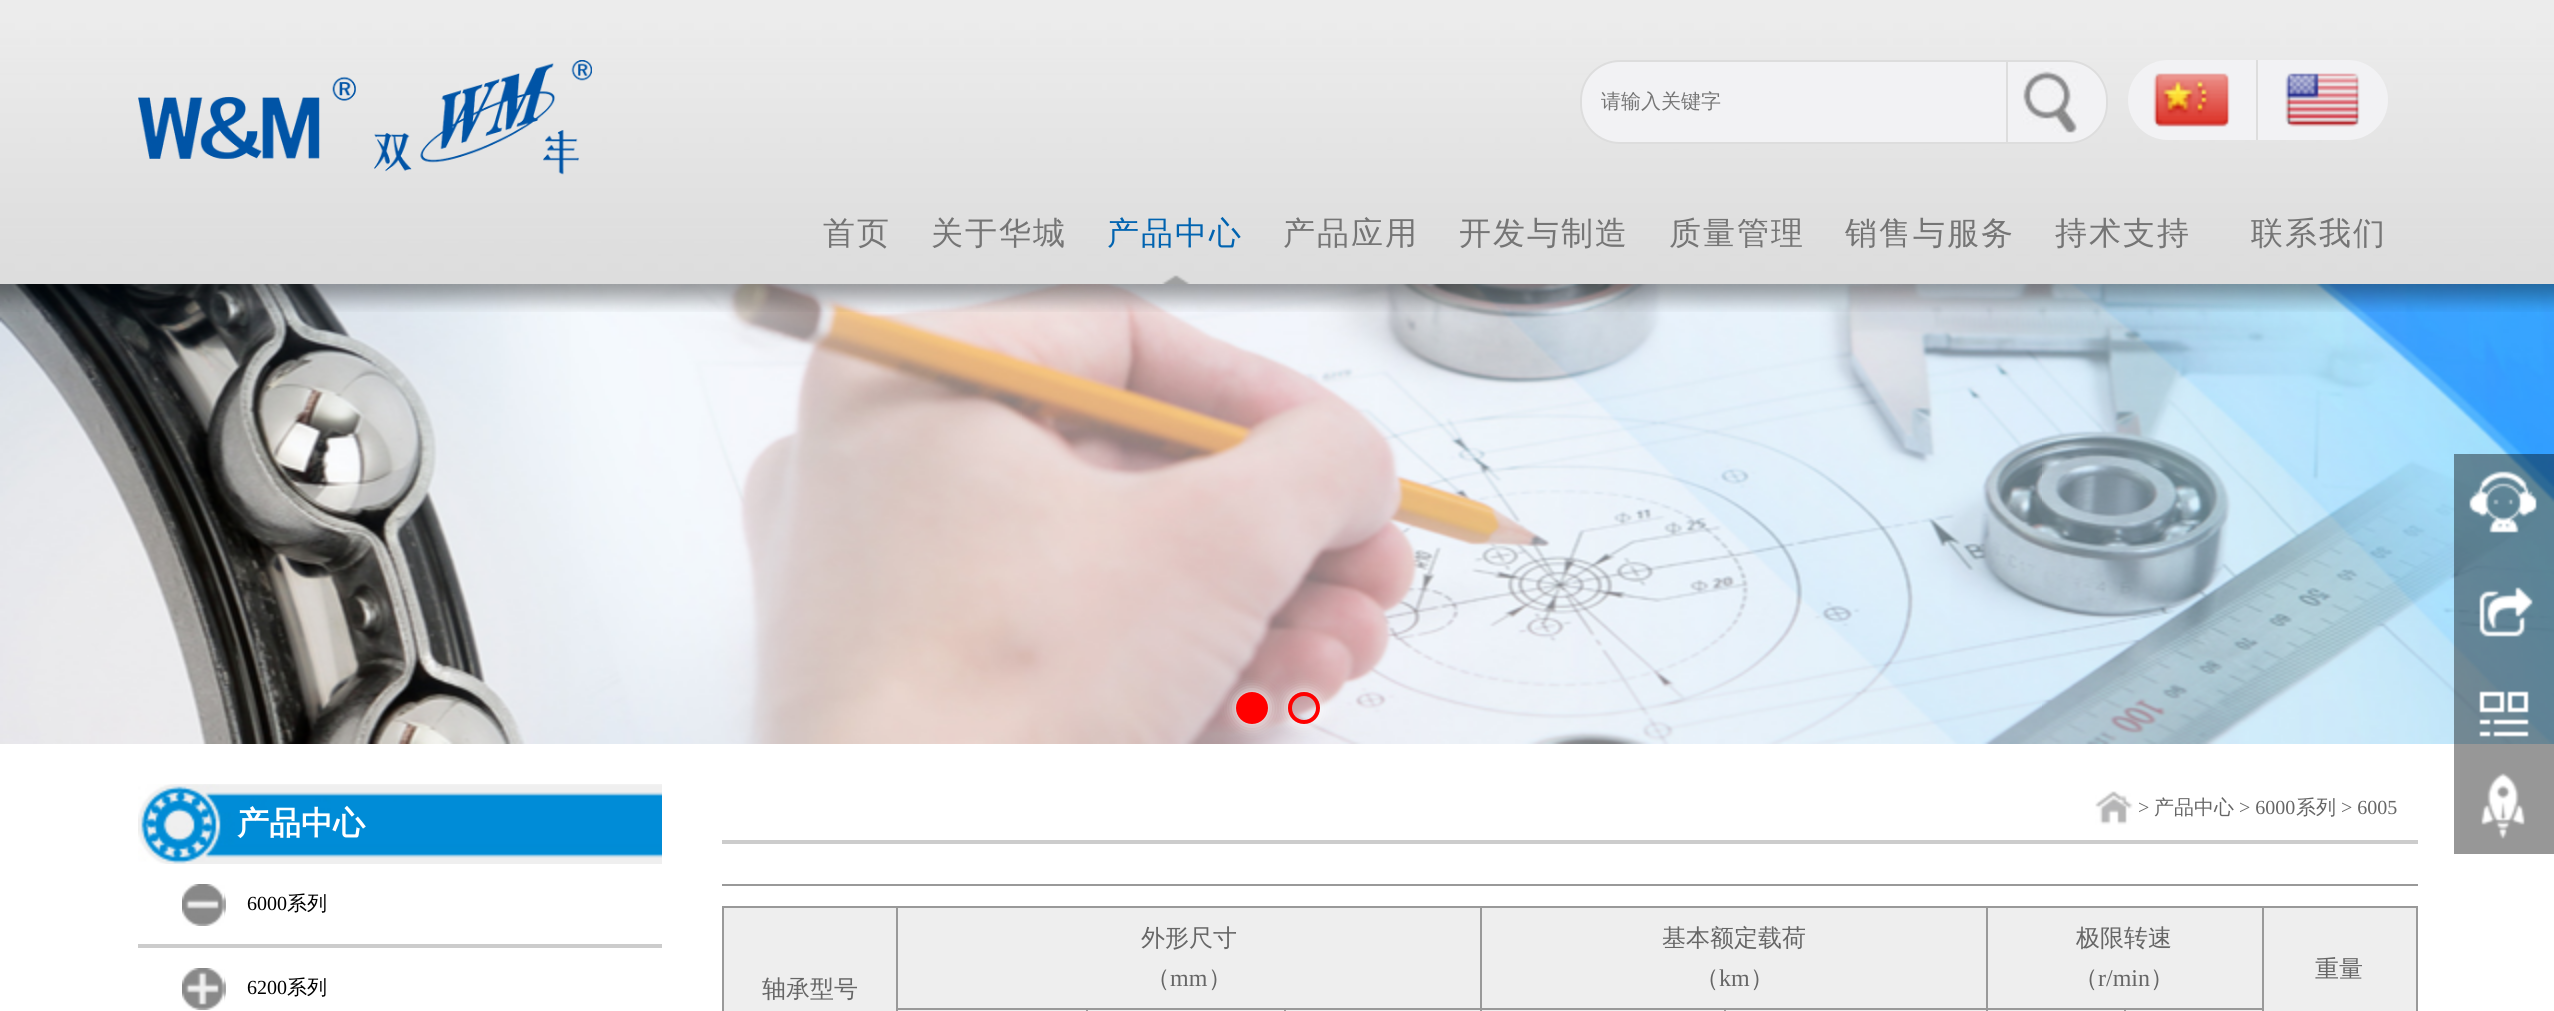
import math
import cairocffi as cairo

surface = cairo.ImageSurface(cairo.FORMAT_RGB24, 2554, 1011)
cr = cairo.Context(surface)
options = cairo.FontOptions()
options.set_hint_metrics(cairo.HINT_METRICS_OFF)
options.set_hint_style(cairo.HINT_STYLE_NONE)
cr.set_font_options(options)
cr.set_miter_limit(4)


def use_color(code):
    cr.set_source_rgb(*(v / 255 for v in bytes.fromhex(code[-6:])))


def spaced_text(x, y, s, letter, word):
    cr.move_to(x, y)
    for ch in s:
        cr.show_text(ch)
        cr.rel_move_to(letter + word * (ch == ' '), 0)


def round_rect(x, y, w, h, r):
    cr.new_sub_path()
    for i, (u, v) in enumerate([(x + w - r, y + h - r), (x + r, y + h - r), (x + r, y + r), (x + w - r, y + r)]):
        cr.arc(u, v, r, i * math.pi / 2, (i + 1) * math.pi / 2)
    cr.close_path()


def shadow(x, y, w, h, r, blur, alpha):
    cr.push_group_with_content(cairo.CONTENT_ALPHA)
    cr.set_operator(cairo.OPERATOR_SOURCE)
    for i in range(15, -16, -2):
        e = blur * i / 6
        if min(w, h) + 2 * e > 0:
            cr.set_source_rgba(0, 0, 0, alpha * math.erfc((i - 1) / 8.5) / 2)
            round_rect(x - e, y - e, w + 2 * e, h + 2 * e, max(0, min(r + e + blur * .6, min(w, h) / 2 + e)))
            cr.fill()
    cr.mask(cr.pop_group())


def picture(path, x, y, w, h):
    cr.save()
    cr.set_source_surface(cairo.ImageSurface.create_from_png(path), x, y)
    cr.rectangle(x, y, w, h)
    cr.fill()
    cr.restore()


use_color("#ffffff")
cr.paint()
picture("img1.png", 0, 0, 2554, 284)
picture("img2.png", 138, 60, 454, 115)
use_color("#f2f2f4")
round_rect(1581, 61, 526, 82, 39)
cr.fill_preserve()
use_color("#dddddd")
cr.stroke()
cr.select_font_face("WenQuanYi Zen Hei Medium")
cr.set_font_size(20)
use_color("#757575")
cr.move_to(1601, 108)
cr.show_text("请输入关键字")
picture("img3.png", 2023, 68, 55, 65)
use_color("#dddddd")
cr.rectangle(2006, 62, 2, 80)
cr.fill()
use_color("#f2f2f4")
round_rect(2128, 60, 260, 80, 40)
cr.fill()
picture("img4.png", 2153, 73, 77, 54)
use_color("#dddddd")
cr.rectangle(2256, 60, 2, 80)
cr.fill()
picture("img5.png", 2285, 73, 75, 54)
cr.set_font_size(32)
use_color("#757575")
spaced_text(823, 244, "首页", 2, 0)
spaced_text(931, 244, "关于华城", 2, 0)
picture("img6.png", 1162, 275, 28, 9)
use_color("#0063b0")
spaced_text(1107, 244, "产品中心", 2, 0)
use_color("#757575")
spaced_text(1283, 244, "产品应用", 2, 0)
spaced_text(1459, 244, "开发与制造", 2, 0)
spaced_text(1669, 244, "质量管理", 2, 0)
spaced_text(1845, 244, "销售与服务", 2, 0)
spaced_text(2055, 244, "持术支持", 2, 0)
spaced_text(2251, 244, "联系我们", 2, 0)
picture("img8.png", 0, 284, 2554, 460)
picture("img7.png", 0, 284, 2554, 28)
use_color("#ffffff")
shadow(1236, 692, 32, 32, 16, 8, 1)
use_color("#ff0000")
cr.arc(1252, 708, 14, 0, 2 * math.pi)
cr.fill_preserve()
cr.set_line_width(4)
cr.stroke()
cr.save()
cr.set_fill_rule(cairo.FILL_RULE_EVEN_ODD)
cr.new_path()
cr.move_to(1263, 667)
cr.line_to(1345, 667)
cr.line_to(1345, 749)
cr.line_to(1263, 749)
cr.close_path()
cr.move_to(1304, 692)
cr.curve_to(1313, 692, 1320, 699, 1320, 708)
cr.curve_to(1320, 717, 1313, 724, 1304, 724)
cr.curve_to(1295, 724, 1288, 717, 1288, 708)
cr.curve_to(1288, 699, 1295, 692, 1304, 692)
cr.close_path()
cr.clip()
use_color("#ffffff")
shadow(1288, 692, 32, 32, 16, 8, 1)
cr.restore()
cr.arc(1304, 708, 14, 0, 2 * math.pi)
cr.stroke()
picture("img9.png", 2454, 454, 100, 400)
picture("img10.png", 138, 784, 524, 80)
cr.select_font_face("WenQuanYi Zen Hei", cairo.FONT_SLANT_NORMAL, cairo.FONT_WEIGHT_BOLD)
use_color("#ffffff")
cr.move_to(237, 834)
cr.show_text("产品中心")
picture("img11.png", 182, 884, 42, 42)
picture("img12.png", 224, 884, 2, 42)
use_color("#cccccc")
cr.rectangle(138, 944, 524, 4)
cr.fill()
cr.select_font_face("Liberation Serif")
cr.set_font_size(20)
use_color("#000000")
cr.move_to(247, 910)
cr.show_text("6000")
cr.select_font_face("WenQuanYi Zen Hei Medium")
cr.move_to(287, 910)
cr.show_text("系列")
picture("img13.png", 182, 968, 42, 42)
picture("img12.png", 224, 968, 2, 42)
cr.select_font_face("Liberation Serif")
cr.move_to(247, 994)
cr.show_text("6200")
cr.select_font_face("WenQuanYi Zen Hei Medium")
cr.move_to(287, 994)
cr.show_text("系列")
use_color("#cccccc")
cr.rectangle(722, 840, 1696, 4)
cr.fill()
picture("img14.png", 2095, 791, 38, 34)
cr.select_font_face("Liberation Serif")
use_color("#666666")
cr.move_to(2138, 814)
cr.show_text(">")
cr.select_font_face("WenQuanYi Zen Hei Medium")
cr.move_to(2154, 814)
cr.show_text("产品中心")
cr.select_font_face("Liberation Serif")
cr.move_to(2239, 814)
cr.show_text("> 6000")
cr.select_font_face("WenQuanYi Zen Hei Medium")
cr.move_to(2296, 814)
cr.show_text("系列")
cr.select_font_face("Liberation Serif")
cr.move_to(2341, 814)
cr.show_text("> 6005")
use_color("#999999")
cr.rectangle(722, 884, 1696, 2)
cr.fill()
use_color("#eeeeee")
cr.rectangle(724, 908, 1692, 103)
cr.fill()
use_color("#999999")
cr.rectangle(722, 906, 1696, 2)
cr.fill()
cr.rectangle(2416, 906, 2, 105)
cr.fill()
cr.rectangle(722, 906, 2, 105)
cr.fill()
cr.rectangle(2124, 1008, 140, 2)
cr.fill()
cr.rectangle(2124, 1008, 2, 3)
cr.fill()
cr.rectangle(1986, 1008, 140, 2)
cr.fill()
cr.rectangle(1986, 1008, 2, 3)
cr.fill()
cr.rectangle(1724, 1008, 264, 2)
cr.fill()
cr.rectangle(1724, 1008, 2, 3)
cr.fill()
cr.rectangle(1480, 1008, 246, 2)
cr.fill()
cr.rectangle(1480, 1008, 2, 3)
cr.fill()
cr.rectangle(1284, 1008, 198, 2)
cr.fill()
cr.rectangle(1284, 1008, 2, 3)
cr.fill()
cr.rectangle(1086, 1008, 200, 2)
cr.fill()
cr.rectangle(1086, 1008, 2, 3)
cr.fill()
cr.rectangle(896, 1008, 192, 2)
cr.fill()
cr.rectangle(896, 906, 2, 105)
cr.fill()
cr.select_font_face("WenQuanYi Zen Hei Medium")
cr.set_font_size(24)
use_color("#666666")
cr.move_to(1141, 946)
cr.show_text("外形尺寸")
cr.move_to(1146, 986)
cr.show_text("（")
cr.select_font_face("Liberation Serif")
cr.move_to(1170, 986)
cr.show_text("mm")
cr.select_font_face("WenQuanYi Zen Hei Medium")
cr.move_to(1208, 986)
cr.show_text("）")
use_color("#999999")
cr.rectangle(1480, 906, 2, 104)
cr.fill()
use_color("#666666")
cr.move_to(1662, 946)
cr.show_text("基本额定载荷")
cr.move_to(1695, 986)
cr.show_text("（")
cr.select_font_face("Liberation Serif")
cr.move_to(1719, 986)
cr.show_text("km")
cr.select_font_face("WenQuanYi Zen Hei Medium")
cr.move_to(1750, 986)
cr.show_text("）")
use_color("#999999")
cr.rectangle(1986, 906, 2, 104)
cr.fill()
use_color("#666666")
cr.move_to(2076, 946)
cr.show_text("极限转速")
cr.move_to(2074, 986)
cr.show_text("（")
cr.select_font_face("Liberation Serif")
cr.move_to(2098, 986)
cr.show_text("r/min")
cr.select_font_face("WenQuanYi Zen Hei Medium")
cr.move_to(2150, 986)
cr.show_text("）")
use_color("#999999")
cr.rectangle(2262, 906, 2, 105)
cr.fill()
use_color("#666666")
cr.move_to(2315, 977)
cr.show_text("重量")
cr.move_to(762, 997)
cr.show_text("轴承型号")
surface.write_to_png("result.png")
